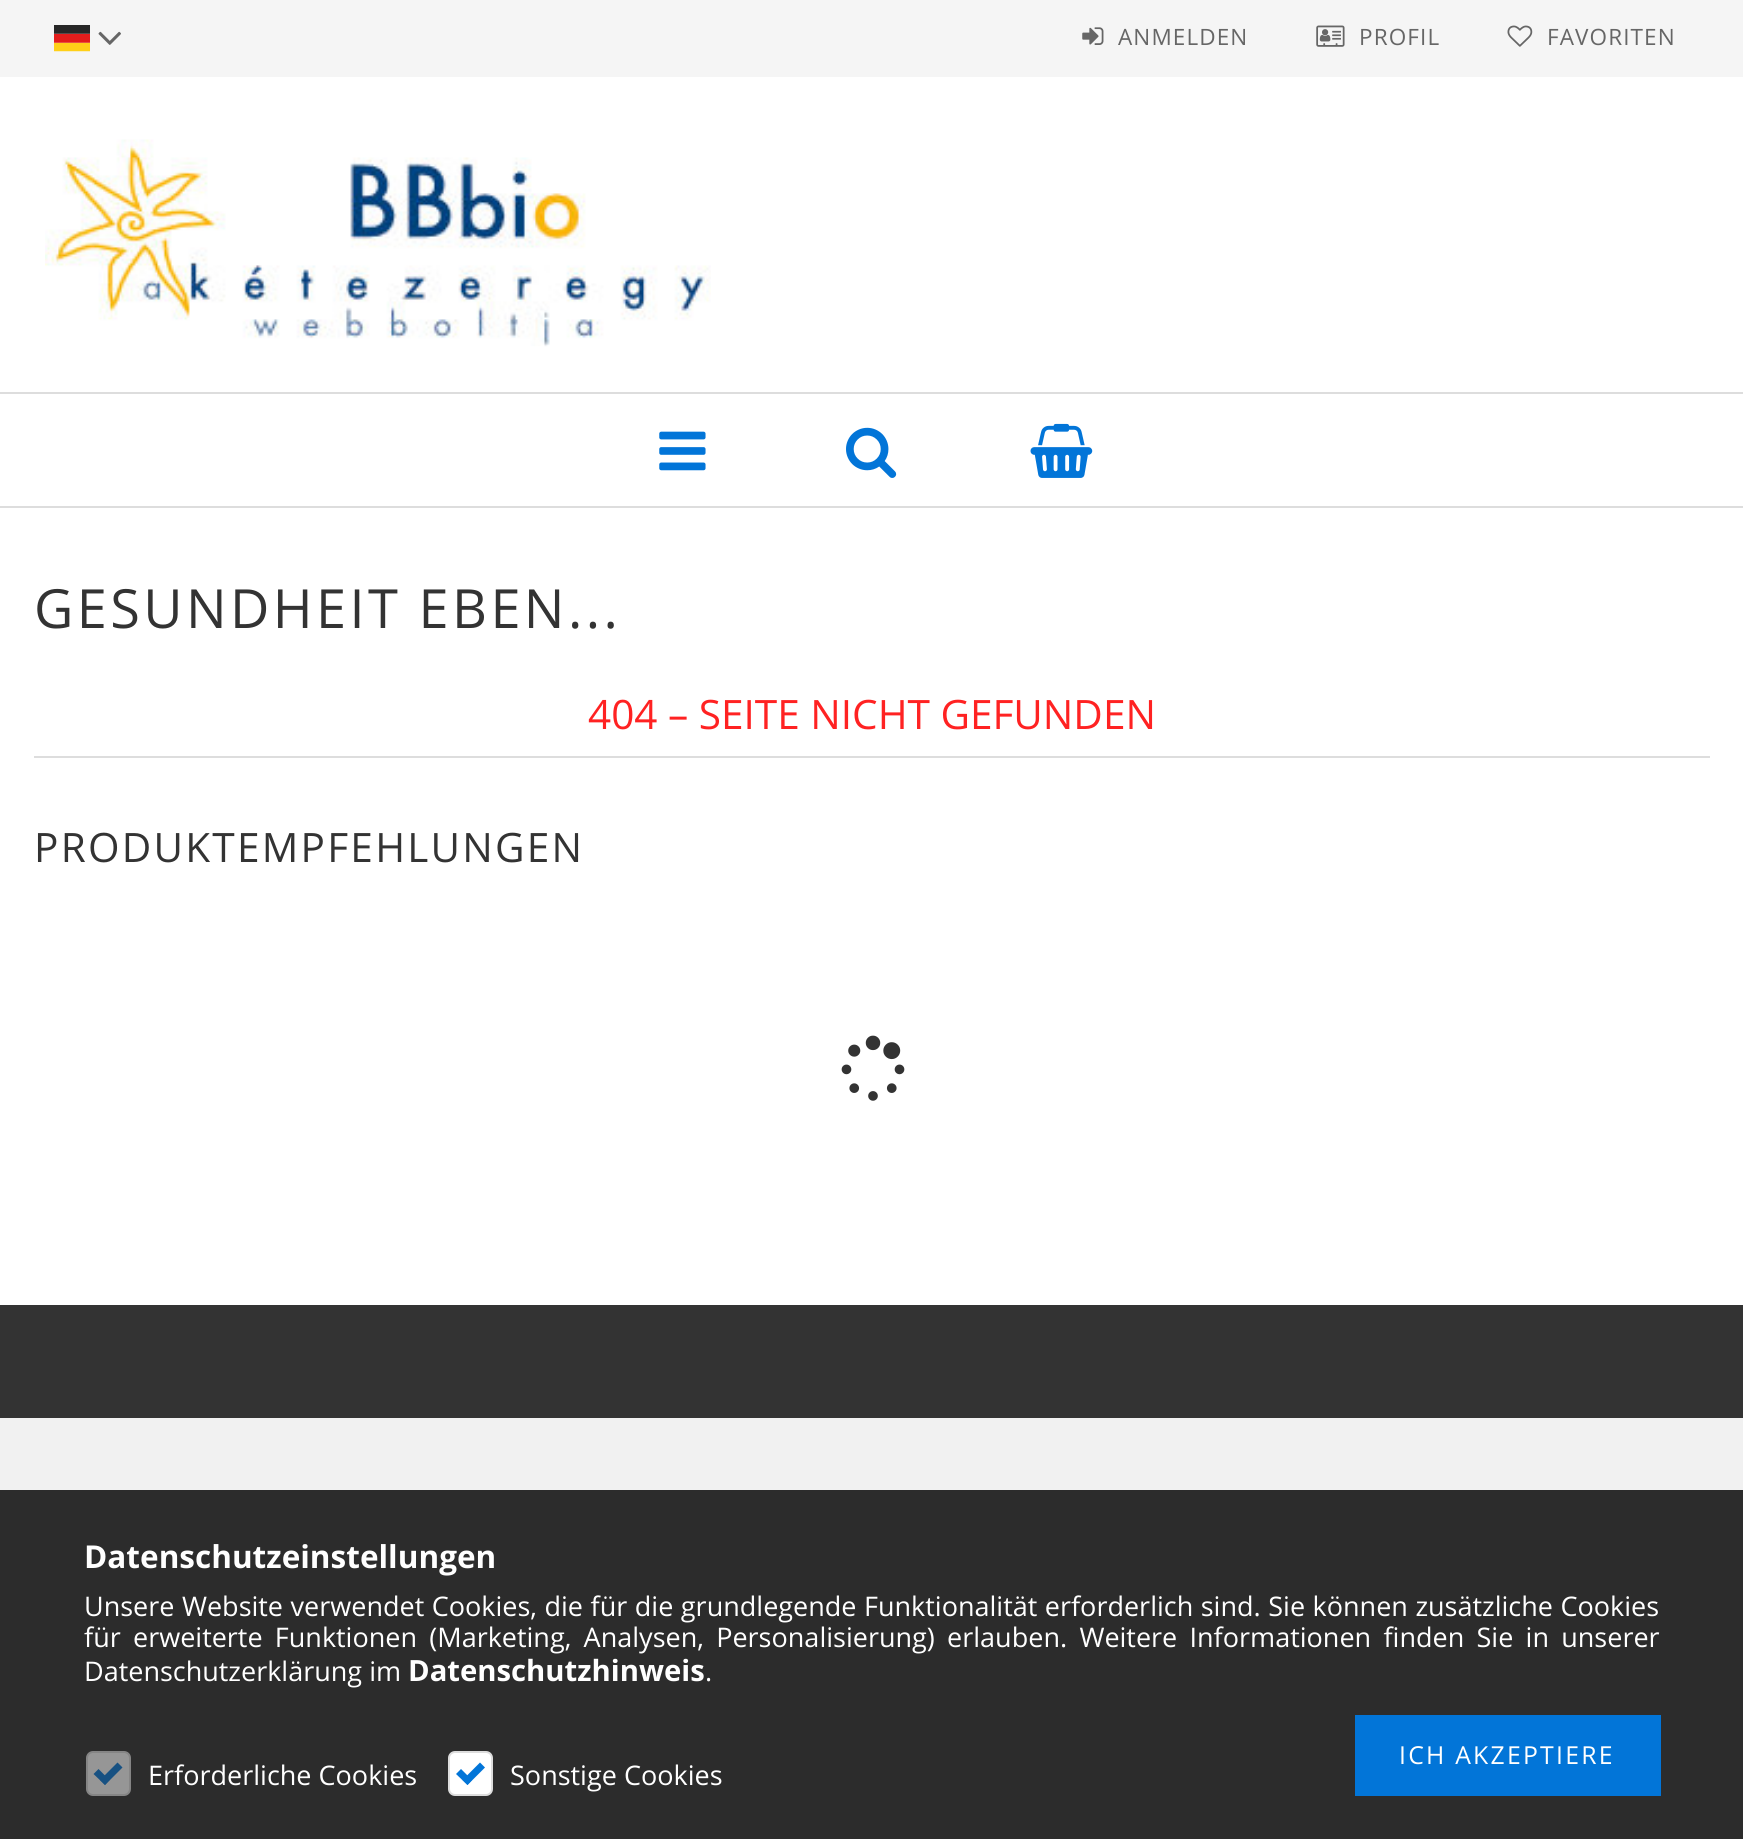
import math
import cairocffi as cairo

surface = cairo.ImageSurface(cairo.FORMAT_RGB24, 1743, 1839)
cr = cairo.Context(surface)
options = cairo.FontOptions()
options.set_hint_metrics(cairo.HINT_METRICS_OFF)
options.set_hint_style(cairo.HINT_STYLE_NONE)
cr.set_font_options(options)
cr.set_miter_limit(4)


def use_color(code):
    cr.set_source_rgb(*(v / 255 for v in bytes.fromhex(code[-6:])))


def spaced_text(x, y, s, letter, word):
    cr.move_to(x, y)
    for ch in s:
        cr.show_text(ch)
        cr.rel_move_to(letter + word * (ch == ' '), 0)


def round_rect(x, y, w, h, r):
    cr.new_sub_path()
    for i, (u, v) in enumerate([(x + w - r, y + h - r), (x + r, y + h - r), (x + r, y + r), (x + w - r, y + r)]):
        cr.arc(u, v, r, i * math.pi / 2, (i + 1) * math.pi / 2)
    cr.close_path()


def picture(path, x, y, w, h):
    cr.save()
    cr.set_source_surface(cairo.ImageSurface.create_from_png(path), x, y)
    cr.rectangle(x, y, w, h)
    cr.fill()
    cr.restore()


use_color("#ffffff")
cr.paint()
use_color("#f5f5f5")
cr.rectangle(0, 0, 1743, 77)
cr.fill()
picture("img1.png", 54, 25, 36, 27)
picture("img2.png", 98, 31, 23, 14)
picture("img3.png", 1082, 27, 22, 18)
cr.select_font_face("Open Sans")
cr.set_font_size(22.5)
use_color("#666666")
spaced_text(1118, 45, "ANMELDEN", 1.1, 0)
picture("img4.png", 1316, 25, 29, 22)
spaced_text(1359, 45, "PROFIL", 1.1, 0)
picture("img5.png", 1507, 25, 26, 22)
spaced_text(1547, 45, "FAVORITEN", 1.1, 0)
picture("img6.png", 45, 139, 666, 208)
use_color("#dddddd")
cr.rectangle(0, 392, 1743, 2)
cr.fill()
cr.rectangle(0, 506, 1743, 2)
cr.fill()
picture("img7.png", 659, 431, 47, 40)
picture("img8.png", 846, 427, 51, 51)
picture("img9.png", 1030, 423, 63, 55)
cr.set_font_size(54)
use_color("#333333")
spaced_text(34, 628, "GESUNDHEIT EBEN...", 3.4, 0)
use_color("#dddddd")
cr.rectangle(34, 756, 1676, 2)
cr.fill()
cr.set_font_size(40.5)
use_color("#ff2222")
cr.move_to(588, 729)
cr.show_text("404 – SEITE NICHT GEFUNDEN")
use_color("#333333")
spaced_text(34, 862, "PRODUKTEMPFEHLUNGEN", 2.25, 0)
picture("img10.png", 841, 1035, 64, 66)
cr.rectangle(0, 1305, 1743, 113)
cr.fill()
use_color("#f1f1f1")
cr.rectangle(0, 1418, 1743, 72)
cr.fill()
use_color("#2c2c2c")
cr.rectangle(0, 1490, 1743, 349)
cr.fill()
cr.select_font_face("Open Sans", cairo.FONT_SLANT_NORMAL, cairo.FONT_WEIGHT_BOLD)
cr.set_font_size(31.5)
use_color("#ffffff")
cr.move_to(84, 1568)
cr.show_text("Datenschutzeinstellungen")
cr.select_font_face("Open Sans")
cr.set_font_size(27)
spaced_text(84, 1616, "Unsere Website verwendet Cookies, die für die grundlegende Funktionalität erforderlich sind. Sie können zusätzliche Cookies", 0, 0.5)
spaced_text(84, 1647, "für erweiterte Funktionen (Marketing, Analysen, Personalisierung) erlauben. Weitere Informationen finden Sie in unserer", 0, 5.25)
cr.move_to(84, 1681)
cr.show_text("Datenschutzerklärung im")
cr.select_font_face("Open Sans", cairo.FONT_SLANT_NORMAL, cairo.FONT_WEIGHT_BOLD)
cr.set_font_size(29.25)
cr.move_to(408, 1681)
cr.show_text("Datenschutzhinweis")
cr.select_font_face("Open Sans")
cr.set_font_size(27)
cr.move_to(705, 1681)
cr.show_text(".")
use_color("#0275d8")
cr.rectangle(1355, 1715, 306, 81)
cr.fill()
cr.set_font_size(24.75)
use_color("#ffffff")
spaced_text(1399, 1764, "ICH AKZEPTIERE", 2.25, 0)
use_color("#969696")
round_rect(87, 1752, 43, 43, 6)
cr.fill_preserve()
use_color("#858585")
cr.stroke()
use_color("#175182")
cr.new_path()
cr.move_to(100, 1780)
cr.line_to(117.5, 1762.5)
cr.line_to(122.5, 1767.5)
cr.line_to(105, 1785)
cr.close_path()
cr.fill()
cr.new_path()
cr.move_to(93.5, 1774)
cr.line_to(98.5, 1769)
cr.line_to(109.5, 1780)
cr.line_to(105, 1785)
cr.close_path()
cr.fill()
cr.set_font_size(27)
use_color("#ffffff")
cr.move_to(148, 1785)
cr.show_text("Erforderliche Cookies")
round_rect(449, 1752, 43, 43, 6)
cr.fill_preserve()
use_color("#dddddd")
cr.stroke()
use_color("#0275d8")
cr.new_path()
cr.move_to(462.5, 1780)
cr.line_to(480, 1762.5)
cr.line_to(485, 1767.5)
cr.line_to(467.5, 1785)
cr.close_path()
cr.fill()
cr.new_path()
cr.move_to(456, 1774)
cr.line_to(461, 1769)
cr.line_to(472, 1780)
cr.line_to(467.5, 1785)
cr.close_path()
cr.fill()
use_color("#ffffff")
cr.move_to(510, 1785)
cr.show_text("Sonstige Cookies")
surface.write_to_png("result.png")
